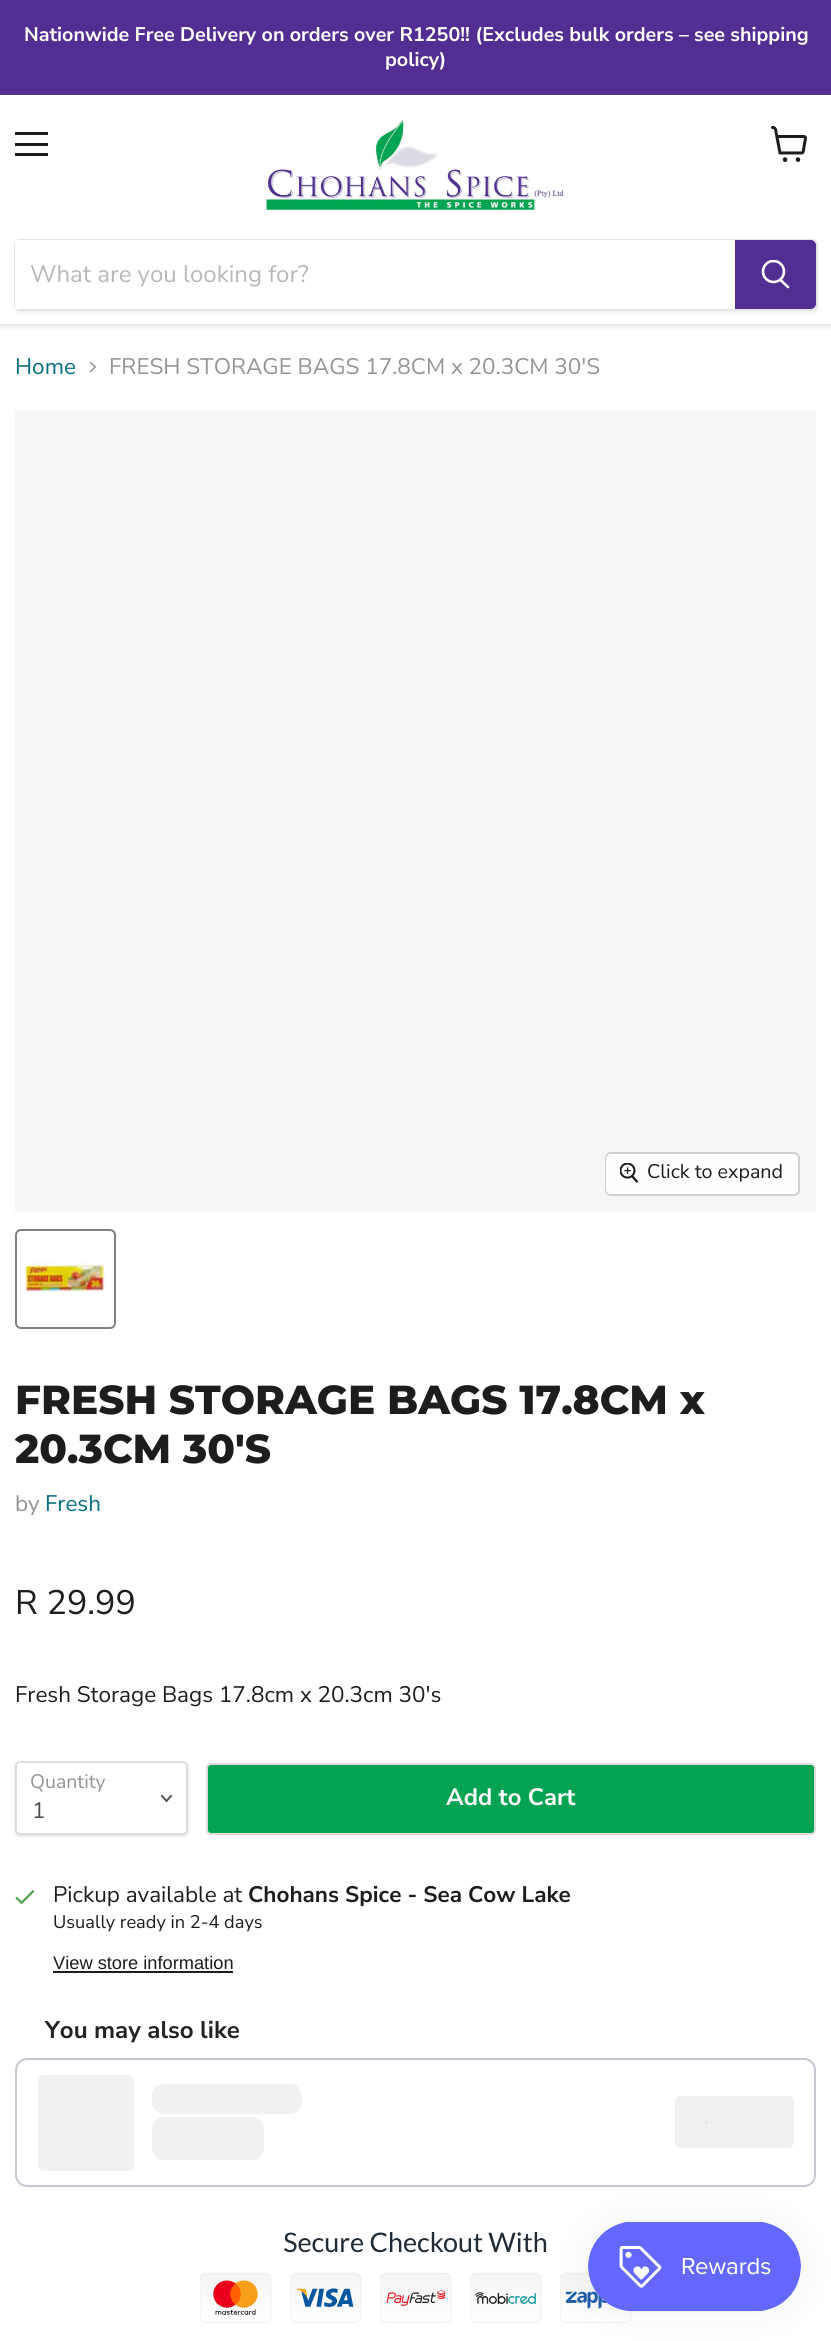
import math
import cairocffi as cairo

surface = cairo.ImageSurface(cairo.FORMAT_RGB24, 831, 2341)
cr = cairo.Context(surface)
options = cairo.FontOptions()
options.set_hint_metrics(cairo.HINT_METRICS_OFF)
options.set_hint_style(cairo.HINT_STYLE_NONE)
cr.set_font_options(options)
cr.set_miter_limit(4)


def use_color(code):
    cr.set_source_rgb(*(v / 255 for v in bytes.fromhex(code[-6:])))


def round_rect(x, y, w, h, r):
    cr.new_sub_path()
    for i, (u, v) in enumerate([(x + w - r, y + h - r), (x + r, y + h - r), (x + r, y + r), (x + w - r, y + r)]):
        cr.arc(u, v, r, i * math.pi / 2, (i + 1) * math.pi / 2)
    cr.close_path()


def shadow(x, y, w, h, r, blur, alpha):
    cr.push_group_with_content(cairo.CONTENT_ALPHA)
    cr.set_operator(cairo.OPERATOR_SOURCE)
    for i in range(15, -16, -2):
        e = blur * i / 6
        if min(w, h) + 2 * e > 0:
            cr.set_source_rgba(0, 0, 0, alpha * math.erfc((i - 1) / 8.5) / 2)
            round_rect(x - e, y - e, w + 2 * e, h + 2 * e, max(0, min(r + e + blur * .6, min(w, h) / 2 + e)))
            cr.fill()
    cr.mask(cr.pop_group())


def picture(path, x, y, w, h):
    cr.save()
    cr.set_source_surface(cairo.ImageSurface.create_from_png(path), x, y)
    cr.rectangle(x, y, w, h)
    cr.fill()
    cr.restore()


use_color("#ffffff")
cr.paint()
use_color("#532e92")
cr.rectangle(0, 0, 831, 95)
cr.fill()
cr.select_font_face("Nunito Sans", cairo.FONT_SLANT_NORMAL, cairo.FONT_WEIGHT_BOLD)
cr.set_font_size(19.7)
use_color("#ffffff")
cr.move_to(24, 41)
cr.show_text("Nationwide Free Delivery on orders over R1250!! (Excludes bulk orders – see shipping")
cr.move_to(385, 66)
cr.show_text("policy)")
use_color("#808080")
shadow(0, 96, 831, 230, 0, 3, 0.25)
use_color("#ffffff")
cr.rectangle(0, 95, 831, 229)
cr.fill()
use_color("#1d1d1d")
cr.rectangle(15, 132, 33, 3)
cr.fill()
cr.rectangle(15, 143, 33, 3)
cr.fill()
cr.rectangle(15, 153, 33, 3)
cr.fill()
picture("img1.png", 771, 126, 36, 36)
picture("img2.png", 265, 119, 300, 92)
cr.save()
cr.set_fill_rule(cairo.FILL_RULE_EVEN_ODD)
cr.new_path()
cr.move_to(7, 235)
cr.line_to(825, 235)
cr.line_to(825, 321)
cr.line_to(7, 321)
cr.close_path()
cr.move_to(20, 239)
cr.line_to(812, 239)
cr.curve_to(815.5, 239, 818, 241.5, 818, 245)
cr.line_to(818, 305)
cr.curve_to(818, 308.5, 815.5, 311, 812, 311)
cr.line_to(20, 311)
cr.curve_to(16.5, 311, 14, 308.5, 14, 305)
cr.line_to(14, 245)
cr.curve_to(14, 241.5, 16.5, 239, 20, 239)
cr.close_path()
cr.clip()
use_color("#808080")
shadow(14, 242, 804, 72, 6, 2, 0.11)
cr.restore()
round_rect(15, 240, 802, 70, 5)
cr.set_source_rgba(0.502, 0.502, 0.502, 0.2)
cr.stroke()
use_color("#ffffff")
cr.rectangle(15, 240, 720, 69)
cr.fill()
cr.select_font_face("Nunito Sans")
cr.set_font_size(24)
use_color("#b8b8b8")
cr.move_to(30, 282)
cr.show_text("What are you looking for?")
use_color("#532e92")
cr.new_path()
cr.move_to(736, 241)
cr.line_to(811, 241)
cr.curve_to(813, 241, 815, 243, 815, 245)
cr.line_to(815, 304)
cr.curve_to(815, 306, 813, 308, 811, 308)
cr.line_to(736, 308)
cr.close_path()
cr.fill_preserve()
cr.stroke()
cr.new_path()
cr.move_to(788, 287)
cr.line_to(780.5, 280)
use_color("#ffffff")
cr.set_line_width(2.6)
cr.set_line_cap(cairo.LINE_CAP_ROUND)
cr.stroke()
cr.save()
cr.rectangle(761, 260, 30, 31)
cr.clip()
cr.arc(773.5, 271.5, 10.5, 0, 2 * math.pi)
cr.set_line_cap(cairo.LINE_CAP_BUTT)
cr.stroke()
cr.restore()
cr.set_font_size(22.5)
use_color("#046e82")
cr.move_to(15, 374)
cr.show_text("Home")
picture("img3.png", 89, 361, 7, 12)
use_color("#949494")
cr.move_to(109, 374)
cr.show_text("FRESH STORAGE BAGS 17.8CM x 20.3CM 30'S")
use_color("#f6f6f6")
cr.rectangle(15, 411, 801, 801)
cr.fill()
round_rect(606, 1153, 193, 42, 5)
use_color("#d1d1d1")
cr.set_line_width(2)
cr.set_line_cap(cairo.LINE_CAP_BUTT)
cr.stroke()
cr.set_source_rgba(1, 1, 1, 0.9)
round_rect(606, 1154, 192, 40, 5)
cr.fill()
picture("img4.png", 620, 1163, 19, 20)
cr.set_font_size(19.7)
use_color("#1d1d1d")
cr.move_to(647, 1178)
cr.show_text("Click to expand")
round_rect(16, 1230, 99, 98, 5)
use_color("#818181")
cr.stroke()
picture("img5.png", 19, 1262, 87, 30)
cr.select_font_face("Montserrat ExtraBold")
cr.set_font_size(40.5)
use_color("#1d1d1d")
cr.move_to(15, 1414)
cr.show_text("FRESH STORAGE BAGS 17.8CM x")
cr.move_to(15, 1463)
cr.show_text("20.3CM 30'S")
cr.select_font_face("Nunito Sans")
cr.set_font_size(22.5)
use_color("#949494")
cr.move_to(15, 1511)
cr.show_text("by")
use_color("#046e82")
cr.move_to(45, 1511)
cr.show_text("Fresh")
cr.set_font_size(34)
use_color("#1d1d1d")
cr.move_to(15, 1614)
cr.show_text("R 29.99")
cr.set_font_size(22.5)
cr.move_to(15, 1702)
cr.show_text("Fresh Storage Bags 17.8cm x 20.3cm 30's")
use_color("#000000")
shadow(15, 1763, 173, 73, 5, 1.5, 0.15)
use_color("#ffffff")
round_rect(16, 1762, 171, 72, 4)
cr.fill_preserve()
use_color("#dddddd")
cr.stroke()
cr.set_font_size(19.5)
use_color("#949494")
cr.move_to(30, 1788)
cr.show_text("Quantity")
cr.new_path()
cr.move_to(166.5, 1801)
cr.line_to(171, 1796)
cr.move_to(166.5, 1801)
cr.line_to(162, 1796)
use_color("#4d4d4d")
cr.set_line_width(1.9)
cr.set_line_cap(cairo.LINE_CAP_SQUARE)
cr.stroke()
cr.set_font_size(22.5)
cr.move_to(32, 1818)
cr.show_text("1")
use_color("#04a352")
round_rect(207, 1764, 608, 70, 4)
cr.fill_preserve()
use_color("#dddddd")
cr.set_line_width(2)
cr.set_line_cap(cairo.LINE_CAP_BUTT)
cr.stroke()
cr.select_font_face("Nunito Sans", cairo.FONT_SLANT_NORMAL, cairo.FONT_WEIGHT_BOLD)
cr.set_font_size(23.75)
use_color("#ffffff")
cr.move_to(446, 1805)
cr.show_text("Add to Cart")
picture("img6.png", 15, 1890, 20, 15)
cr.select_font_face("Nunito Sans")
cr.set_font_size(22.5)
use_color("#1d1d1d")
cr.move_to(53, 1902)
cr.show_text("Pickup available at")
cr.select_font_face("Nunito Sans", cairo.FONT_SLANT_NORMAL, cairo.FONT_WEIGHT_BOLD)
cr.move_to(248, 1902)
cr.show_text("Chohans Spice - Sea Cow Lake")
cr.select_font_face("Nunito Sans")
cr.set_font_size(18.25)
cr.move_to(53, 1928)
cr.show_text("Usually ready in 2-4 days")
cr.select_font_face("Liberation Sans")
cr.move_to(53, 1969)
cr.show_text("View store information")
cr.rectangle(53, 1971, 180, 2)
cr.fill()
cr.select_font_face("Nunito Sans", cairo.FONT_SLANT_NORMAL, cairo.FONT_WEIGHT_BOLD)
cr.set_font_size(24)
use_color("#202223")
cr.move_to(45, 2038)
cr.show_text("You may also like")
round_rect(16, 2059, 799, 127, 11)
use_color("#c5c8d1")
cr.stroke()
use_color("#f1f1f1")
round_rect(38, 2075, 96, 96, 6)
cr.fill()
round_rect(152, 2084, 150, 30, 12)
cr.fill()
round_rect(152, 2117, 112, 43, 12)
cr.fill()
round_rect(675, 2096, 119, 52, 6)
cr.fill()
picture("img7.png", 700, 2116, 13, 13)
picture("img8.png", 200, 2232, 432, 91)
use_color("#000000")
shadow(588, 2222, 213, 90, 45, 19, 0.05)
picture("img9.png", 588, 2221, 213, 91)
surface.write_to_png("result.png")
